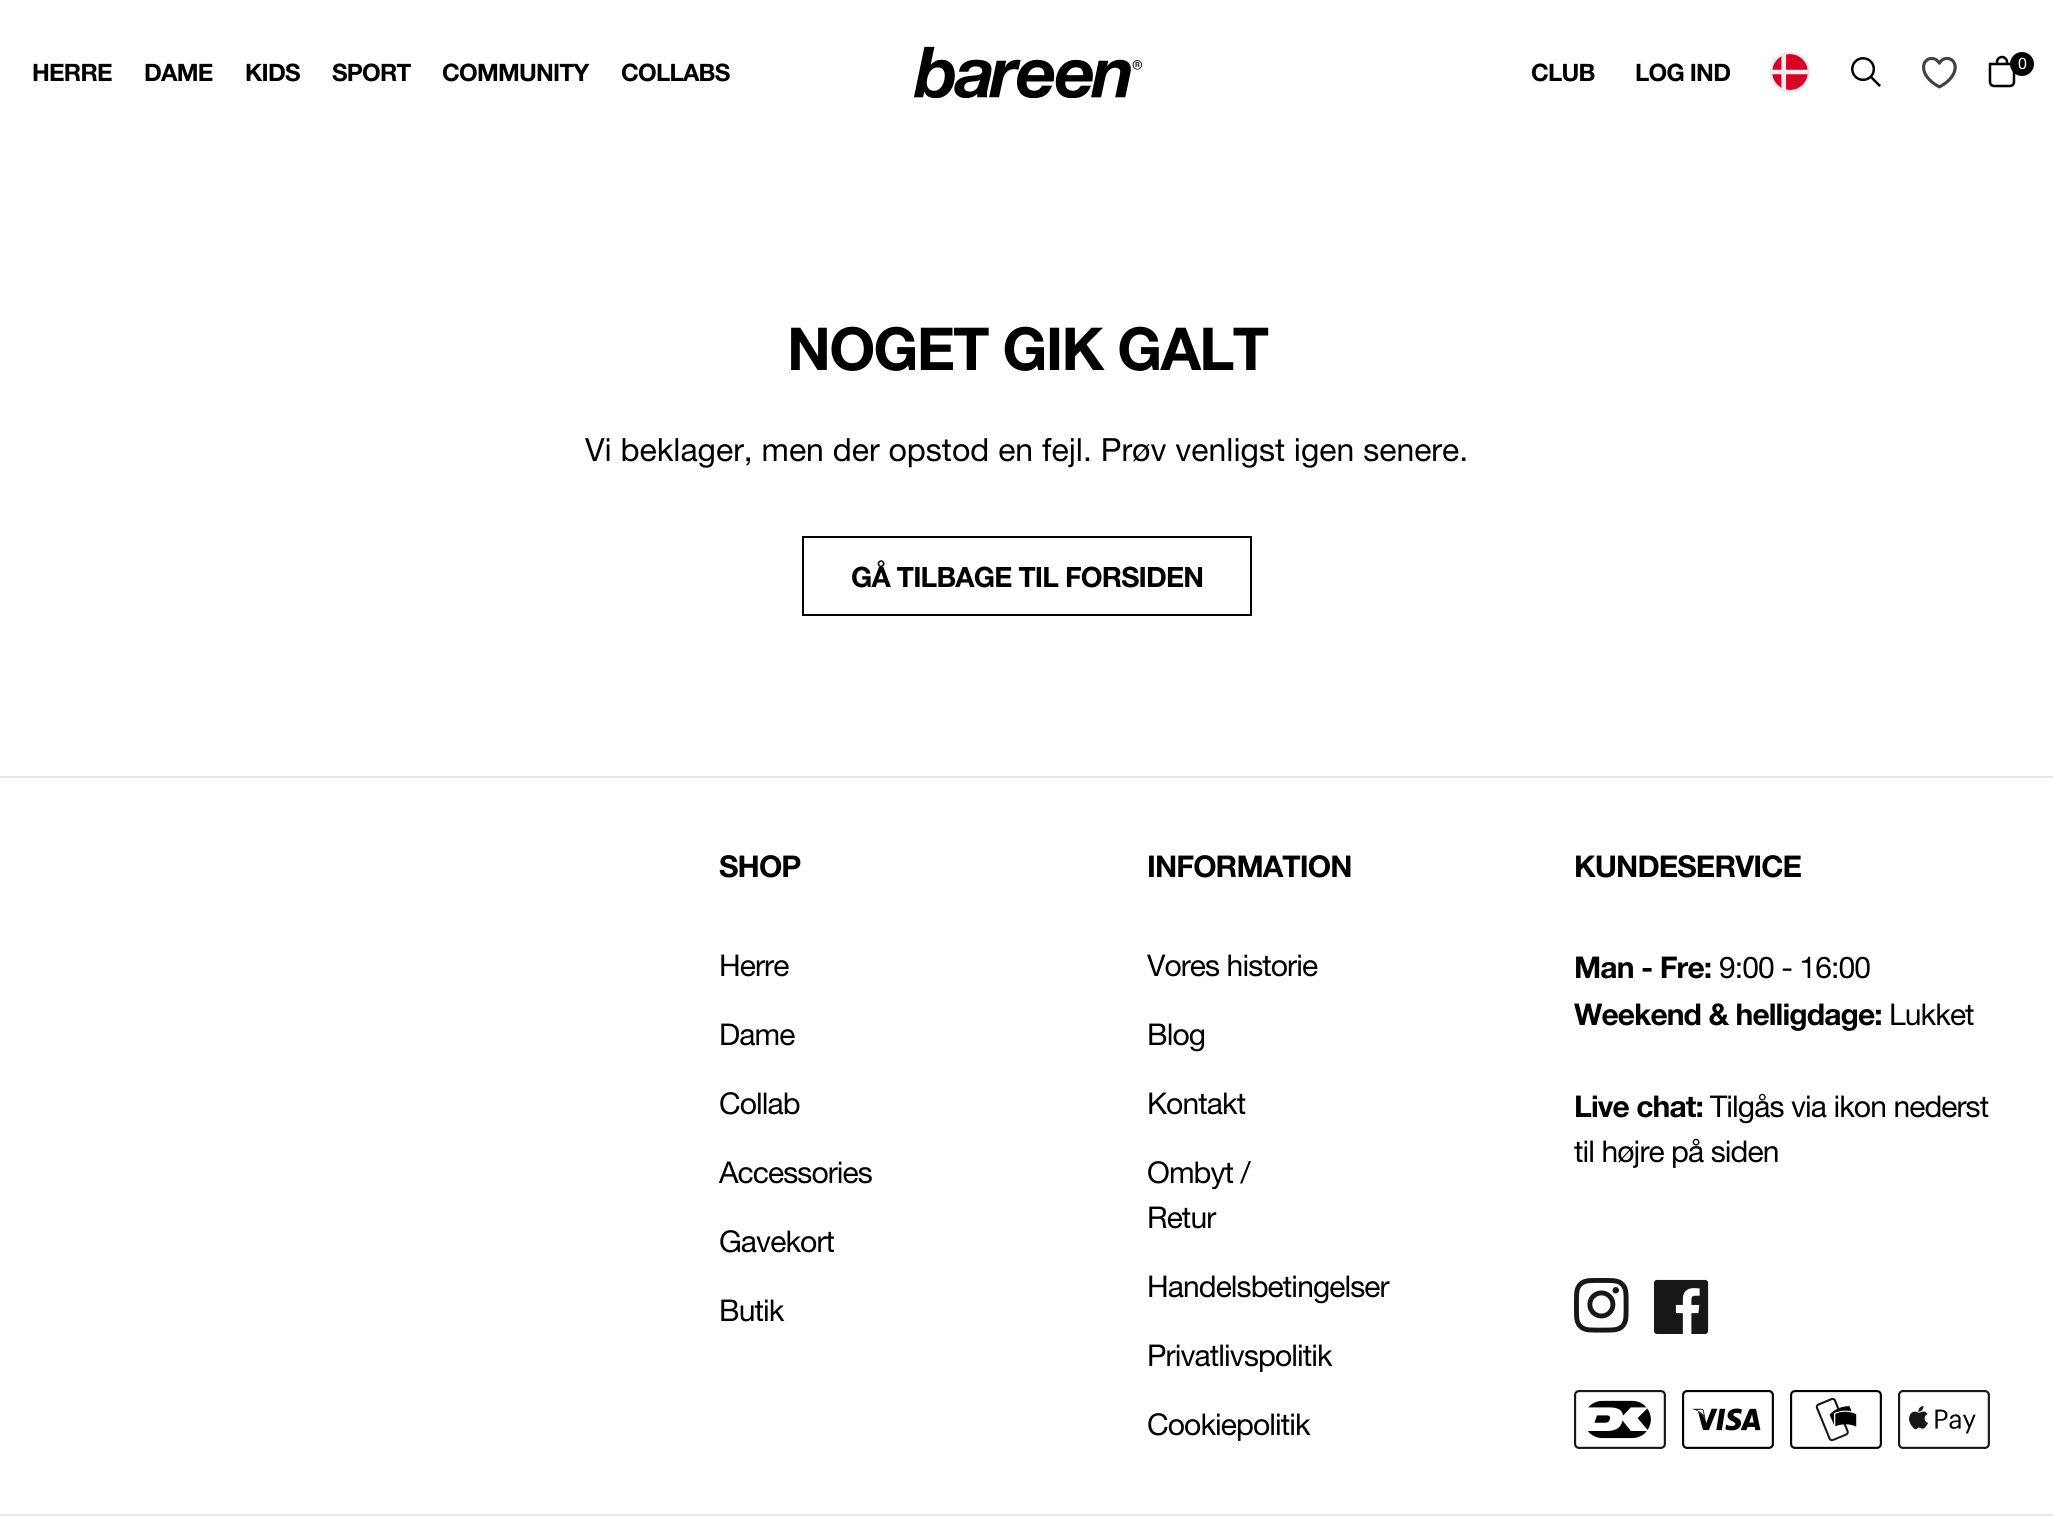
import math
import cairocffi as cairo

surface = cairo.ImageSurface(cairo.FORMAT_RGB24, 2053, 1523)
cr = cairo.Context(surface)
options = cairo.FontOptions()
options.set_hint_metrics(cairo.HINT_METRICS_OFF)
options.set_hint_style(cairo.HINT_STYLE_NONE)
cr.set_font_options(options)
cr.set_miter_limit(4)


def use_color(code):
    cr.set_source_rgb(*(v / 255 for v in bytes.fromhex(code[-6:])))


def spaced_text(x, y, s, letter, word):
    cr.move_to(x, y)
    for ch in s:
        cr.show_text(ch)
        cr.rel_move_to(letter + word * (ch == ' '), 0)


def picture(path, x, y, w, h):
    cr.save()
    cr.set_source_surface(cairo.ImageSurface.create_from_png(path), x, y)
    cr.rectangle(x, y, w, h)
    cr.fill()
    cr.restore()


use_color("#ffffff")
cr.paint()
cr.select_font_face("Helvetica Neue", cairo.FONT_SLANT_NORMAL, cairo.FONT_WEIGHT_BOLD)
cr.set_font_size(24)
use_color("#000000")
spaced_text(32, 81, "HERRE", -0.75, 0)
spaced_text(144, 81, "DAME", -0.75, 0)
spaced_text(245, 81, "KIDS", -0.75, 0)
spaced_text(332, 81, "SPORT", -0.75, 0)
spaced_text(442, 81, "COMMUNITY", -0.75, 0)
spaced_text(621, 81, "COLLABS", -0.75, 0)
picture("img1.png", 914, 46, 228, 52)
spaced_text(1531, 81, "CLUB", -0.75, 0)
spaced_text(1635, 81, "LOG IND", -0.75, 0)
cr.new_path()
cr.arc(1790, 72, 19, 0, 2 * math.pi)
use_color("#e7e7e7")
cr.stroke()
picture("img2.png", 1772, 54, 36, 36)
picture("img3.png", 1851, 57, 30, 30)
picture("img4.png", 1922, 56, 35, 33)
picture("img5.png", 1988, 55, 28, 33)
use_color("#000000")
cr.arc(2022, 64, 12, 0, 2 * math.pi)
cr.fill()
cr.select_font_face("Helvetica Neue")
cr.set_font_size(16)
use_color("#ffffff")
cr.move_to(2018, 69)
cr.show_text("0")
cr.select_font_face("Helvetica Neue", cairo.FONT_SLANT_NORMAL, cairo.FONT_WEIGHT_BOLD)
cr.set_font_size(59.25)
use_color("#000000")
spaced_text(787, 370, "NOGET GIK GALT", -1.75, 0)
cr.select_font_face("Helvetica Neue")
cr.set_font_size(32)
cr.move_to(585, 461)
cr.show_text("Vi beklager, men der opstod en fejl. Prøv venligst igen senere.")
cr.rectangle(803, 537, 448, 78)
cr.stroke()
cr.select_font_face("Helvetica Neue", cairo.FONT_SLANT_NORMAL, cairo.FONT_WEIGHT_BOLD)
cr.set_font_size(28)
spaced_text(851, 587, "GÅ TILBAGE TIL FORSIDEN", -0.8, 0)
use_color("#e7e7e7")
cr.rectangle(0, 776, 2053, 2)
cr.fill()
cr.set_font_size(30)
use_color("#000000")
spaced_text(719, 877, "SHOP", -0.9, 0)
cr.select_font_face("Helvetica Neue")
spaced_text(719, 976, "Herre", -0.9, 0)
spaced_text(719, 1045, "Dame", -0.9, 0)
spaced_text(719, 1114, "Collab", -0.9, 0)
spaced_text(719, 1183, "Accessories", -0.9, 0)
spaced_text(719, 1252, "Gavekort", -0.9, 0)
spaced_text(719, 1321, "Butik", -0.9, 0)
cr.select_font_face("Helvetica Neue", cairo.FONT_SLANT_NORMAL, cairo.FONT_WEIGHT_BOLD)
spaced_text(1147, 877, "INFORMATION", -0.9, 0)
cr.select_font_face("Helvetica Neue")
spaced_text(1147, 976, "Vores historie", -0.9, 0)
spaced_text(1147, 1045, "Blog", -0.9, 0)
spaced_text(1147, 1114, "Kontakt", -0.9, 0)
spaced_text(1147, 1183, "Ombyt /", -0.9, 0)
spaced_text(1147, 1228, "Retur", -0.9, 0)
spaced_text(1147, 1297, "Handelsbetingelser", -0.9, 0)
spaced_text(1147, 1366, "Privatlivspolitik", -0.9, 0)
spaced_text(1147, 1435, "Cookiepolitik", -0.9, 0)
cr.select_font_face("Helvetica Neue", cairo.FONT_SLANT_NORMAL, cairo.FONT_WEIGHT_BOLD)
spaced_text(1574, 877, "KUNDESERVICE", -0.9, 0)
spaced_text(1574, 978, "Man - Fre:", -0.9, 0)
cr.select_font_face("Helvetica Neue")
spaced_text(1719, 978, "9:00 - 16:00", -0.9, 0)
cr.select_font_face("Helvetica Neue", cairo.FONT_SLANT_NORMAL, cairo.FONT_WEIGHT_BOLD)
spaced_text(1574, 1025, "Weekend & helligdage:", -0.9, 0)
cr.select_font_face("Helvetica Neue")
spaced_text(1889, 1025, "Lukket", -0.9, 0)
cr.select_font_face("Helvetica Neue", cairo.FONT_SLANT_NORMAL, cairo.FONT_WEIGHT_BOLD)
spaced_text(1574, 1117, "Live chat:", -0.9, 0)
cr.select_font_face("Helvetica Neue")
spaced_text(1710, 1117, "Tilgås via ikon nederst", -0.9, 0)
spaced_text(1574, 1162, "til højre på siden", -0.9, 0)
picture("img6.png", 1574, 1278, 55, 55)
picture("img7.png", 1654, 1279, 55, 55)
picture("img8.png", 1574, 1390, 92, 59)
picture("img9.png", 1682, 1390, 92, 59)
picture("img10.png", 1790, 1390, 92, 59)
picture("img11.png", 1898, 1390, 92, 59)
use_color("#e7e7e7")
cr.rectangle(0, 1514, 2053, 2)
cr.fill()
surface.write_to_png("result.png")
